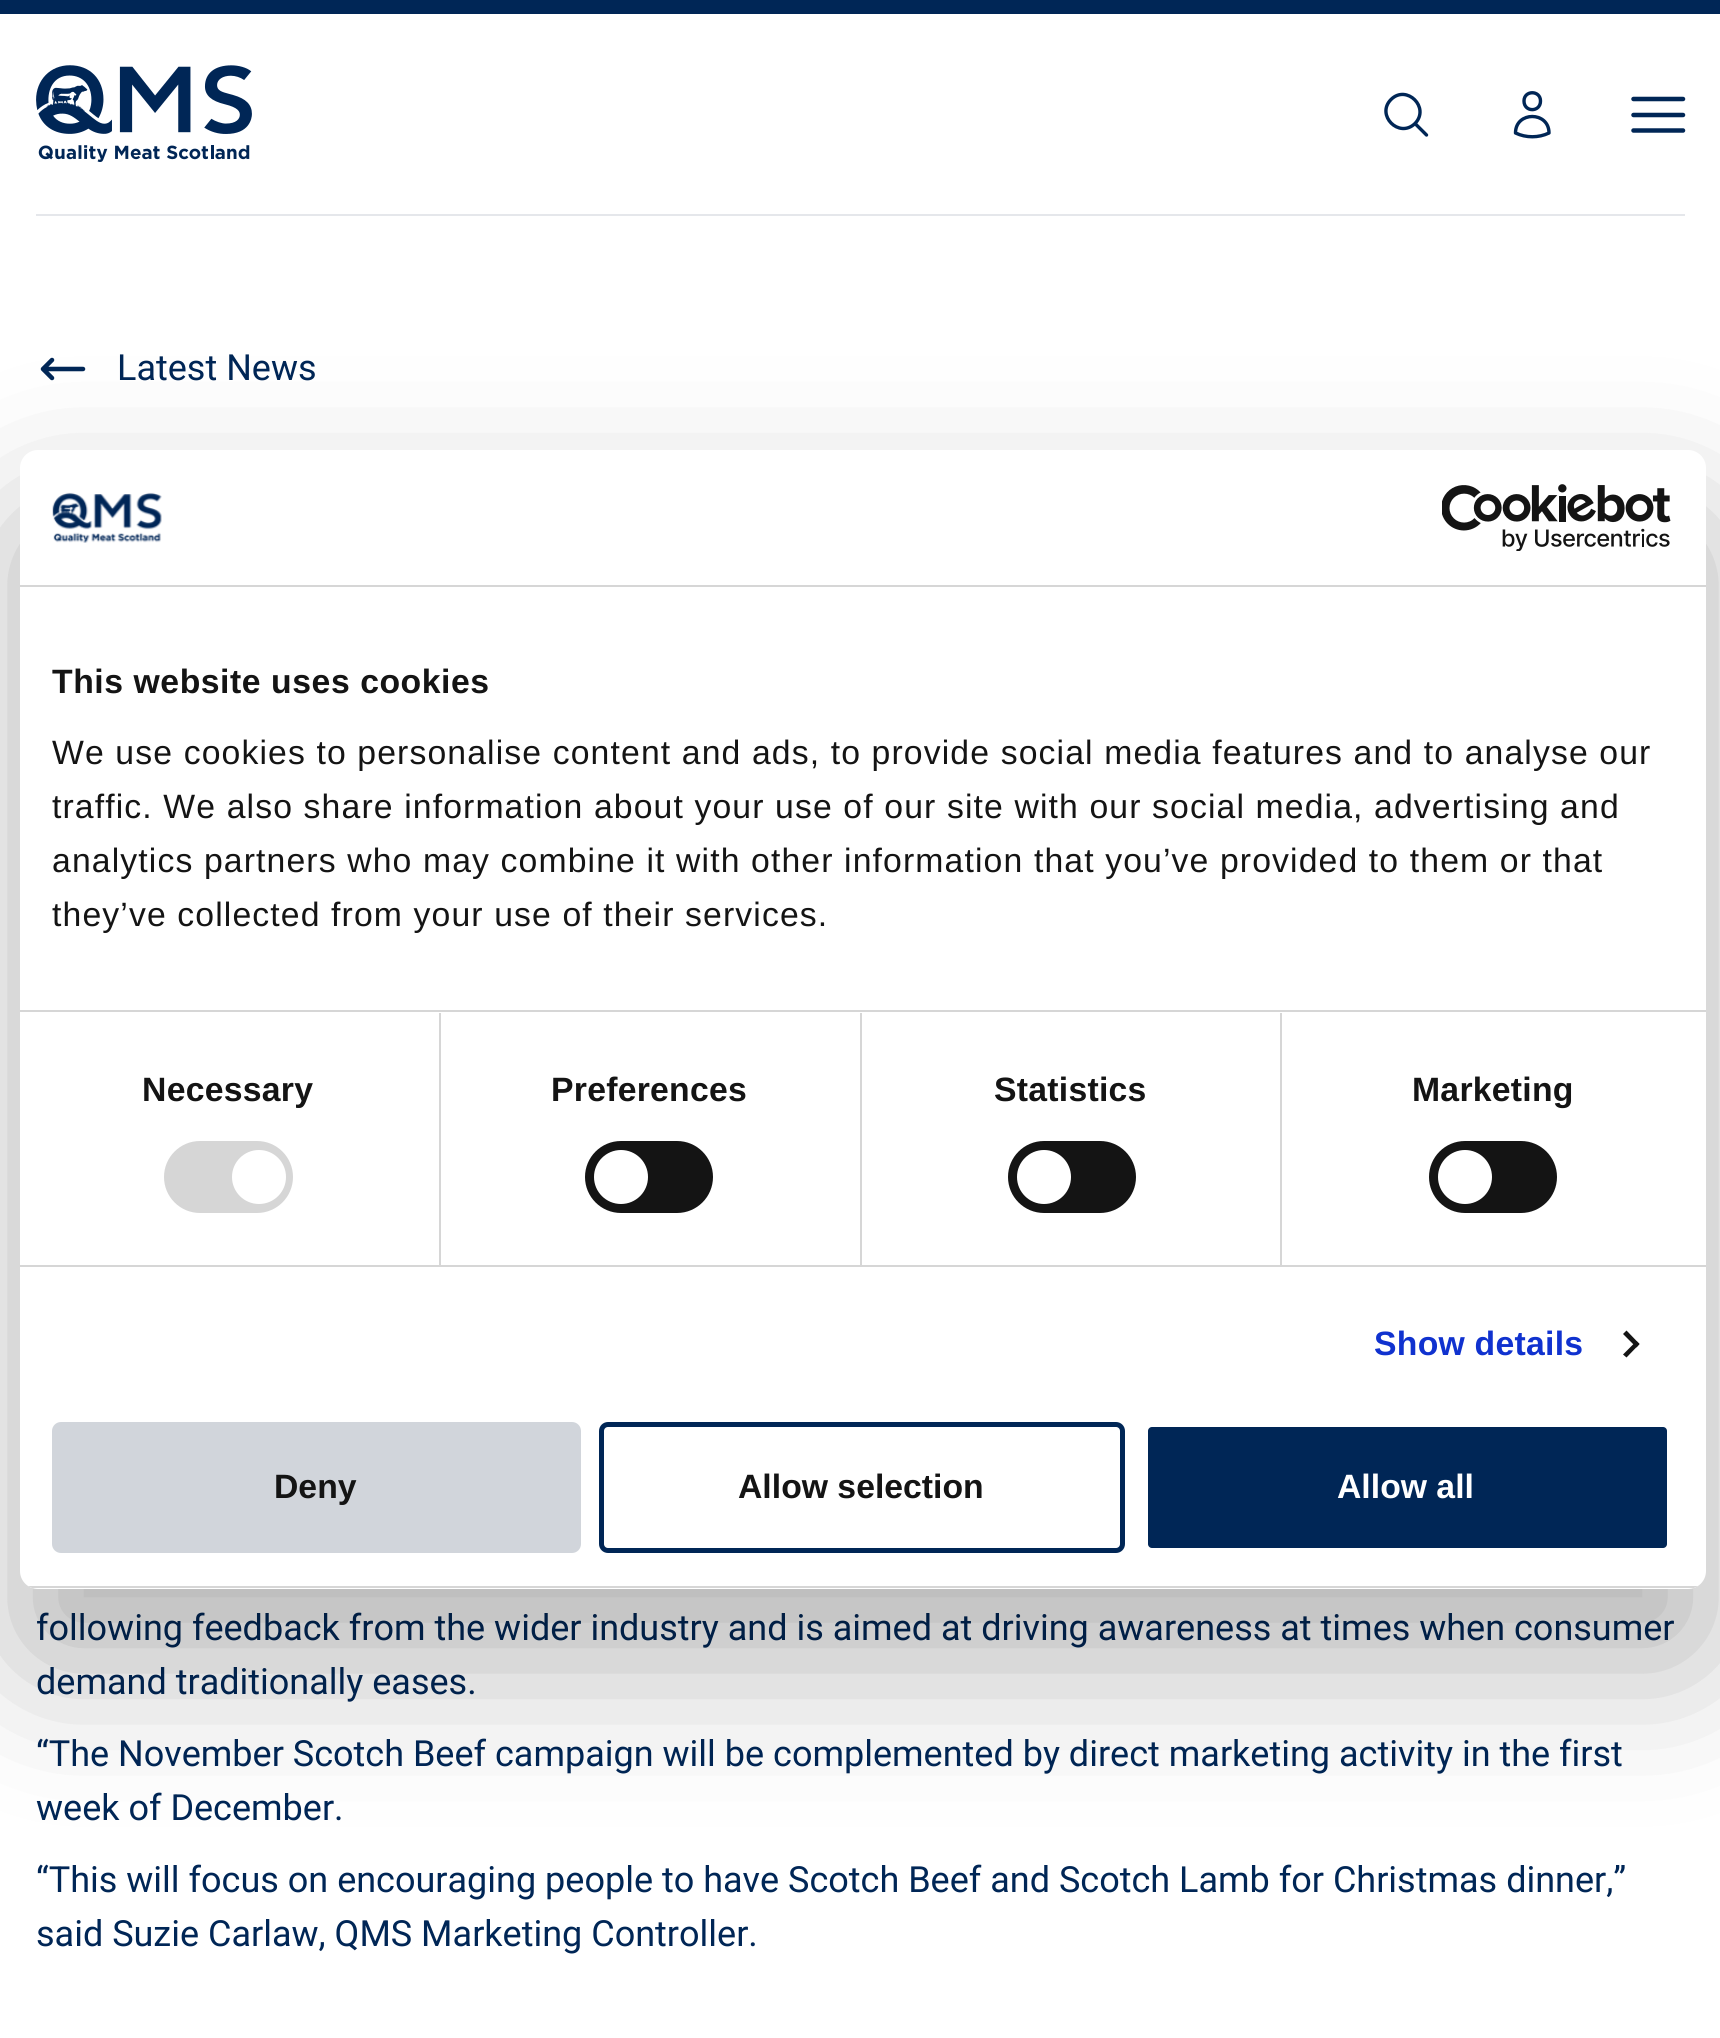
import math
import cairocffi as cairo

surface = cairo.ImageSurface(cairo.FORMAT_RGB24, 1720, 2038)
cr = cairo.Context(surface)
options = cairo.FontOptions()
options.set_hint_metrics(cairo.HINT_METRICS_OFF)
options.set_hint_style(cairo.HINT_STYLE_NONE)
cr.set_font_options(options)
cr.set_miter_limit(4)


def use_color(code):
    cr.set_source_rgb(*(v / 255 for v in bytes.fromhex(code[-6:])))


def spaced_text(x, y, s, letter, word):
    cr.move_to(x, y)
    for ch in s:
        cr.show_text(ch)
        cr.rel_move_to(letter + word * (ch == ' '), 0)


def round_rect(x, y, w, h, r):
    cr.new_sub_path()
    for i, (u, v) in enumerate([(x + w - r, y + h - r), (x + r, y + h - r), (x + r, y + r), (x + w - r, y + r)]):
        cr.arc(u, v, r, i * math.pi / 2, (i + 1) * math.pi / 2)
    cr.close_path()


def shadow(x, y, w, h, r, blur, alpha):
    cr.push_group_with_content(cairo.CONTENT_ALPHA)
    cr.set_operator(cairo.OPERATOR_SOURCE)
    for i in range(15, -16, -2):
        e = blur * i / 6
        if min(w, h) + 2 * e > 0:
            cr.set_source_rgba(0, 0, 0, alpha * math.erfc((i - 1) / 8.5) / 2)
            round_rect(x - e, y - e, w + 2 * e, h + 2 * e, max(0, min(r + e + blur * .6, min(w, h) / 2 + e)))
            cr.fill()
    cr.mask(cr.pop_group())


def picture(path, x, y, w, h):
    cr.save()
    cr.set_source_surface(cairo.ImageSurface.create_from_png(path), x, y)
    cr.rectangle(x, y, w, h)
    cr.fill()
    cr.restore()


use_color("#ffffff")
cr.paint()
use_color("#002656")
cr.rectangle(0, 0, 1720, 14)
cr.fill()
picture("img1.png", 36, 65, 216, 97)
cr.new_path()
cr.move_to(1426.5, 135)
cr.line_to(1415, 123.5)
cr.move_to(1415, 123.5)
cr.curve_to(1430.5, 107.5, 1406.5, 84, 1391, 99.5)
cr.curve_to(1375.5, 115, 1399, 139, 1415, 123.5)
cr.close_path()
cr.set_line_width(3.4)
cr.set_line_cap(cairo.LINE_CAP_ROUND)
cr.set_line_join(cairo.LINE_JOIN_ROUND)
cr.stroke()
cr.new_path()
cr.move_to(1540.5, 101)
cr.curve_to(1540.5, 112.5, 1524, 112.5, 1524, 101)
cr.curve_to(1524, 90, 1540.5, 90, 1540.5, 101)
cr.close_path()
cr.move_to(1515.5, 133)
cr.curve_to(1515.5, 111, 1549, 111, 1549, 133)
cr.curve_to(1538.5, 138, 1526, 138, 1515.5, 133)
cr.close_path()
cr.stroke()
cr.new_path()
cr.move_to(1633.5, 99)
cr.line_to(1683, 99)
cr.move_to(1633.5, 115)
cr.line_to(1683, 115)
cr.move_to(1633.5, 115)
cr.line_to(1683, 115)
cr.move_to(1633.5, 130.5)
cr.line_to(1683, 130.5)
cr.set_line_width(4.5)
cr.stroke()
use_color("#e5e7eb")
cr.rectangle(36, 214, 1649, 2)
cr.fill()
cr.new_path()
cr.move_to(52, 378)
cr.line_to(43, 369)
cr.move_to(43, 369)
cr.line_to(52, 360)
cr.move_to(43, 369)
cr.line_to(83, 369)
use_color("#002656")
cr.stroke()
cr.select_font_face("Roboto")
cr.set_font_size(36)
cr.move_to(117, 380)
cr.show_text("Latest News")
cr.move_to(36, 1640)
cr.show_text("following feedback from the wider industry and is aimed at driving awareness at times when consumer")
cr.move_to(36, 1694)
cr.show_text("demand traditionally eases.")
cr.move_to(36, 1766)
cr.show_text("“The November Scotch Beef campaign will be complemented by direct marketing activity in the first")
cr.move_to(36, 1820)
cr.show_text("week of December.")
cr.move_to(36, 1892)
cr.show_text("“This will focus on encouraging people to have Scotch Beef and Scotch Lamb for Christmas dinner,”")
cr.move_to(36, 1946)
cr.show_text("said Suzie Carlaw, QMS Marketing Controller.")
use_color("#000000")
shadow(20, 522, 1686, 1139, 18, 76.5, 0.3)
use_color("#ffffff")
round_rect(20, 450, 1686, 1139, 18)
cr.fill()
use_color("#d6d6d6")
cr.rectangle(20, 585, 1686, 2)
cr.fill()
picture("img2.png", 52, 492, 110, 51)
picture("img3.png", 1442, 484, 229, 67)
cr.rectangle(20, 1010, 1686, 2)
cr.fill()
cr.select_font_face("Liberation Sans", cairo.FONT_SLANT_NORMAL, cairo.FONT_WEIGHT_BOLD)
cr.set_font_size(33.75)
use_color("#141414")
spaced_text(52, 693, "This website uses cookies", 0.55, 0)
cr.select_font_face("Liberation Sans")
spaced_text(52, 764, "We use cookies to personalise content and ads, to provide social media features and to analyse our", 1.12, 0)
spaced_text(52, 818, "traffic. We also share information about your use of our site with our social media, advertising and", 1.12, 0)
spaced_text(52, 872, "analytics partners who may combine it with other information that you’ve provided to them or that", 1.12, 0)
spaced_text(52, 926, "they’ve collected from your use of their services.", 1.12, 0)
use_color("#d6d6d6")
cr.rectangle(20, 1265, 1686, 2)
cr.fill()
cr.rectangle(439, 1013, 2, 252)
cr.fill()
cr.select_font_face("Liberation Sans", cairo.FONT_SLANT_NORMAL, cairo.FONT_WEIGHT_BOLD)
use_color("#141414")
spaced_text(142, 1101, "Necessary", 0.25, 0)
use_color("#d6d6d6")
round_rect(164, 1141, 129, 72, 36)
cr.fill()
use_color("#ffffff")
cr.arc(259, 1177, 27, 0, 2 * math.pi)
cr.fill()
use_color("#d6d6d6")
cr.rectangle(860, 1013, 2, 252)
cr.fill()
use_color("#141414")
spaced_text(551, 1101, "Preferences", 0.25, 0)
round_rect(585, 1141, 128, 72, 36)
cr.fill()
use_color("#ffffff")
cr.arc(621, 1177, 27, 0, 2 * math.pi)
cr.fill()
use_color("#d6d6d6")
cr.rectangle(1280, 1013, 2, 252)
cr.fill()
use_color("#141414")
spaced_text(994, 1101, "Statistics", 0.25, 0)
round_rect(1008, 1141, 128, 72, 36)
cr.fill()
use_color("#ffffff")
cr.arc(1044, 1177, 27, 0, 2 * math.pi)
cr.fill()
use_color("#141414")
spaced_text(1412, 1101, "Marketing", 0.25, 0)
round_rect(1429, 1141, 128, 72, 36)
cr.fill()
use_color("#ffffff")
cr.arc(1465, 1177, 27, 0, 2 * math.pi)
cr.fill()
use_color("#1032cf")
spaced_text(1374, 1355, "Show details", 0.25, 0)
use_color("#141414")
cr.new_path()
cr.move_to(1626.5, 1330.5)
cr.line_to(1639.5, 1344)
cr.line_to(1636.5, 1347.5)
cr.line_to(1623, 1334)
cr.close_path()
cr.fill()
cr.new_path()
cr.move_to(1636.5, 1341)
cr.line_to(1639.5, 1344)
cr.line_to(1626.5, 1357.5)
cr.line_to(1623, 1354.5)
cr.close_path()
cr.fill()
cr.save()
round_rect(20, 450, 1686, 1139, 18)
cr.clip()
use_color("#d6d6d6")
cr.rectangle(20, 1586, 1686, 2)
cr.fill()
cr.restore()
use_color("#d1d5db")
round_rect(54.5, 1424.5, 524, 126, 6.5)
cr.fill_preserve()
cr.set_line_width(5)
cr.set_line_cap(cairo.LINE_CAP_BUTT)
cr.set_line_join(cairo.LINE_JOIN_MITER)
cr.stroke()
use_color("#141414")
cr.move_to(274, 1498)
cr.show_text("Deny")
round_rect(601.5, 1424.5, 521, 126, 6.5)
use_color("#002656")
cr.stroke()
use_color("#141414")
cr.move_to(738, 1498)
cr.show_text("Allow selection")
use_color("#002656")
round_rect(1145.5, 1424.5, 524, 126, 6.5)
cr.fill_preserve()
use_color("#ffffff")
cr.stroke()
cr.move_to(1337, 1498)
cr.show_text("Allow all")
surface.write_to_png("result.png")
